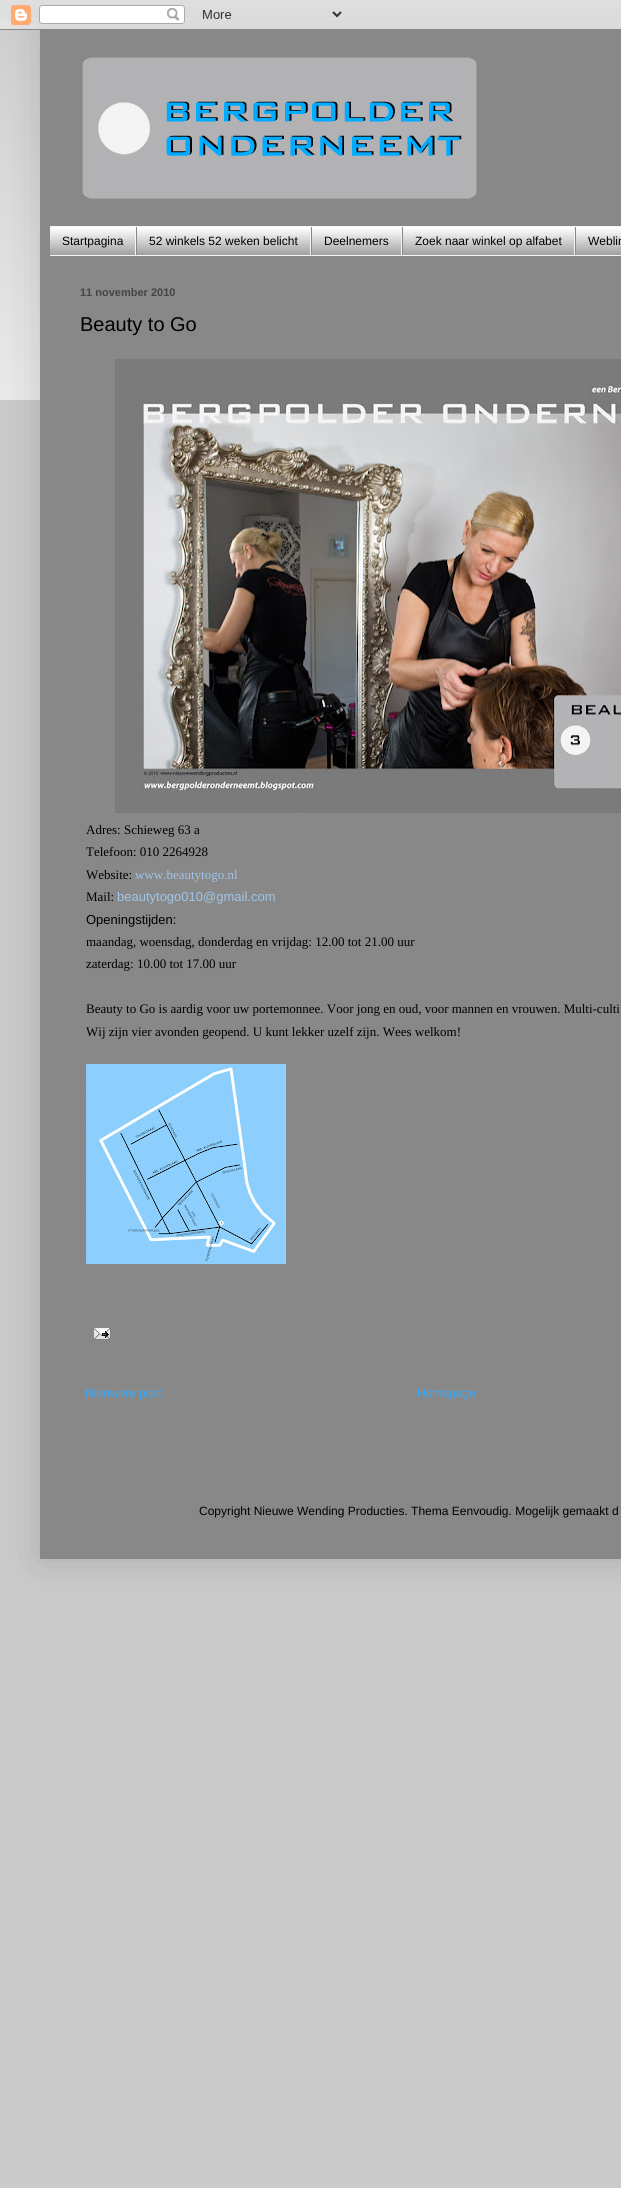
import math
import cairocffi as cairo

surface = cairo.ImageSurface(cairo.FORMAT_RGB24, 621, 2188)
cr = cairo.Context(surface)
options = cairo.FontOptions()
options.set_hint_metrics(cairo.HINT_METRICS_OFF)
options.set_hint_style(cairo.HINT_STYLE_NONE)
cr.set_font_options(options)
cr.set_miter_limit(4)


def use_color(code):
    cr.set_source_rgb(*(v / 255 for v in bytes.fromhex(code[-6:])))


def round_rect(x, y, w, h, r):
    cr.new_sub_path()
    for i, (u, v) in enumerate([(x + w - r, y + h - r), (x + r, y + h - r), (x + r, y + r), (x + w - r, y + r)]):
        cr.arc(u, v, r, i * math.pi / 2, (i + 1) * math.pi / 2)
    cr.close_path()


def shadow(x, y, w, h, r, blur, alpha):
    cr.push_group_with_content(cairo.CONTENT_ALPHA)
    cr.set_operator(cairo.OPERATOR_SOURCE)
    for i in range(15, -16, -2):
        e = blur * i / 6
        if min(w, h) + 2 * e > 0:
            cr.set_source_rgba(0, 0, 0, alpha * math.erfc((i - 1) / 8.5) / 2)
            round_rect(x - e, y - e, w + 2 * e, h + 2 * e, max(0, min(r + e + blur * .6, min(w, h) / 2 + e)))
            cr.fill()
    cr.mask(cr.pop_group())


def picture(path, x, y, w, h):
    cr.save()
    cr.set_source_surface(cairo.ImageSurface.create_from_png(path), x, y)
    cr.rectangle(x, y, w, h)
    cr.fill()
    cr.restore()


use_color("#cacaca")
cr.paint()
picture("img2.png", 0, 18, 621, 382)
use_color("#000000")
shadow(40, 30, 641, 1529, 0, 20, 0.15)
picture("img1.png", 0, 0, 621, 30)
use_color("#888888")
cr.rectangle(40, 30, 581, 1529)
cr.fill()
picture("img3.png", 82, 57, 395, 142)
use_color("#7a7a7a")
cr.rectangle(50, 228, 571, 27)
cr.fill()
picture("img4.png", 50, 227, 571, 28)
use_color("#f5f5f5")
cr.rectangle(50, 226, 571, 1)
cr.fill()
cr.rectangle(50, 255, 571, 1)
cr.fill()
cr.rectangle(135, 227, 1, 28)
cr.fill()
cr.select_font_face("Liberation Sans")
cr.set_font_size(12)
use_color("#000000")
cr.move_to(62, 245)
cr.show_text("Startpagina")
use_color("#f5f5f5")
cr.rectangle(310, 227, 1, 28)
cr.fill()
use_color("#888888")
cr.rectangle(136, 227, 1, 28)
cr.fill()
use_color("#000000")
cr.move_to(149, 245)
cr.show_text("52 winkels 52 weken belicht")
use_color("#f5f5f5")
cr.rectangle(401, 227, 1, 28)
cr.fill()
use_color("#888888")
cr.rectangle(311, 227, 1, 28)
cr.fill()
use_color("#000000")
cr.move_to(324, 245)
cr.show_text("Deelnemers")
use_color("#f5f5f5")
cr.rectangle(574, 227, 1, 28)
cr.fill()
use_color("#888888")
cr.rectangle(402, 227, 1, 28)
cr.fill()
use_color("#000000")
cr.move_to(415, 245)
cr.show_text("Zoek naar winkel op alfabet")
use_color("#888888")
cr.rectangle(575, 227, 1, 28)
cr.fill()
use_color("#000000")
cr.move_to(588, 245)
cr.show_text("Weblin")
cr.select_font_face("Liberation Sans", cairo.FONT_SLANT_NORMAL, cairo.FONT_WEIGHT_BOLD)
cr.set_font_size(11)
use_color("#444444")
cr.move_to(80, 296)
cr.show_text("11 november 2010")
cr.select_font_face("Liberation Sans")
cr.set_font_size(20)
use_color("#000000")
cr.move_to(80, 331)
cr.show_text("Beauty to Go")
picture("img5.png", 115, 359, 506, 454)
cr.select_font_face("Liberation Serif")
cr.set_font_size(13)
cr.move_to(86, 834)
cr.show_text("Adres: Schieweg 63 a")
cr.move_to(86, 856)
cr.show_text("Telefoon: 010 2264928")
cr.move_to(86, 879)
cr.show_text("Website:")
use_color("#9fc5e8")
cr.move_to(135, 879)
cr.show_text("www.beautytogo.nl")
use_color("#000000")
cr.move_to(86, 901)
cr.show_text("Mail:")
cr.select_font_face("Liberation Sans")
use_color("#9fc5e8")
cr.move_to(117, 901)
cr.show_text("beautytogo010@gmail.com")
use_color("#000000")
cr.move_to(86, 924)
cr.show_text("Openingstijden:")
cr.select_font_face("Liberation Serif")
cr.move_to(86, 946)
cr.show_text("maandag, woensdag, donderdag en vrijdag: 12.00 tot 21.00 uur")
cr.move_to(86, 968)
cr.show_text("zaterdag: 10.00 tot 17.00 uur")
cr.move_to(86, 1013)
cr.show_text("Beauty to Go is aardig voor uw portemonnee. Voor jong en oud, voor mannen en vrouwen. Multi-culti")
cr.move_to(86, 1036)
cr.show_text("Wij zijn vier avonden geopend. U kunt lekker uzelf zijn. Wees welkom!")
picture("img6.png", 86, 1064, 200, 200)
picture("img7.png", 94, 1327, 17, 13)
cr.select_font_face("Liberation Sans")
cr.set_font_size(12)
use_color("#33aaff")
cr.move_to(85, 1397)
cr.show_text("Nieuwere post")
cr.move_to(417, 1397)
cr.show_text("Homepage")
use_color("#000000")
cr.move_to(199, 1515)
cr.show_text("Copyright Nieuwe Wending Producties. Thema Eenvoudig. Mogelijk gemaakt d")
surface.write_to_png("result.png")
